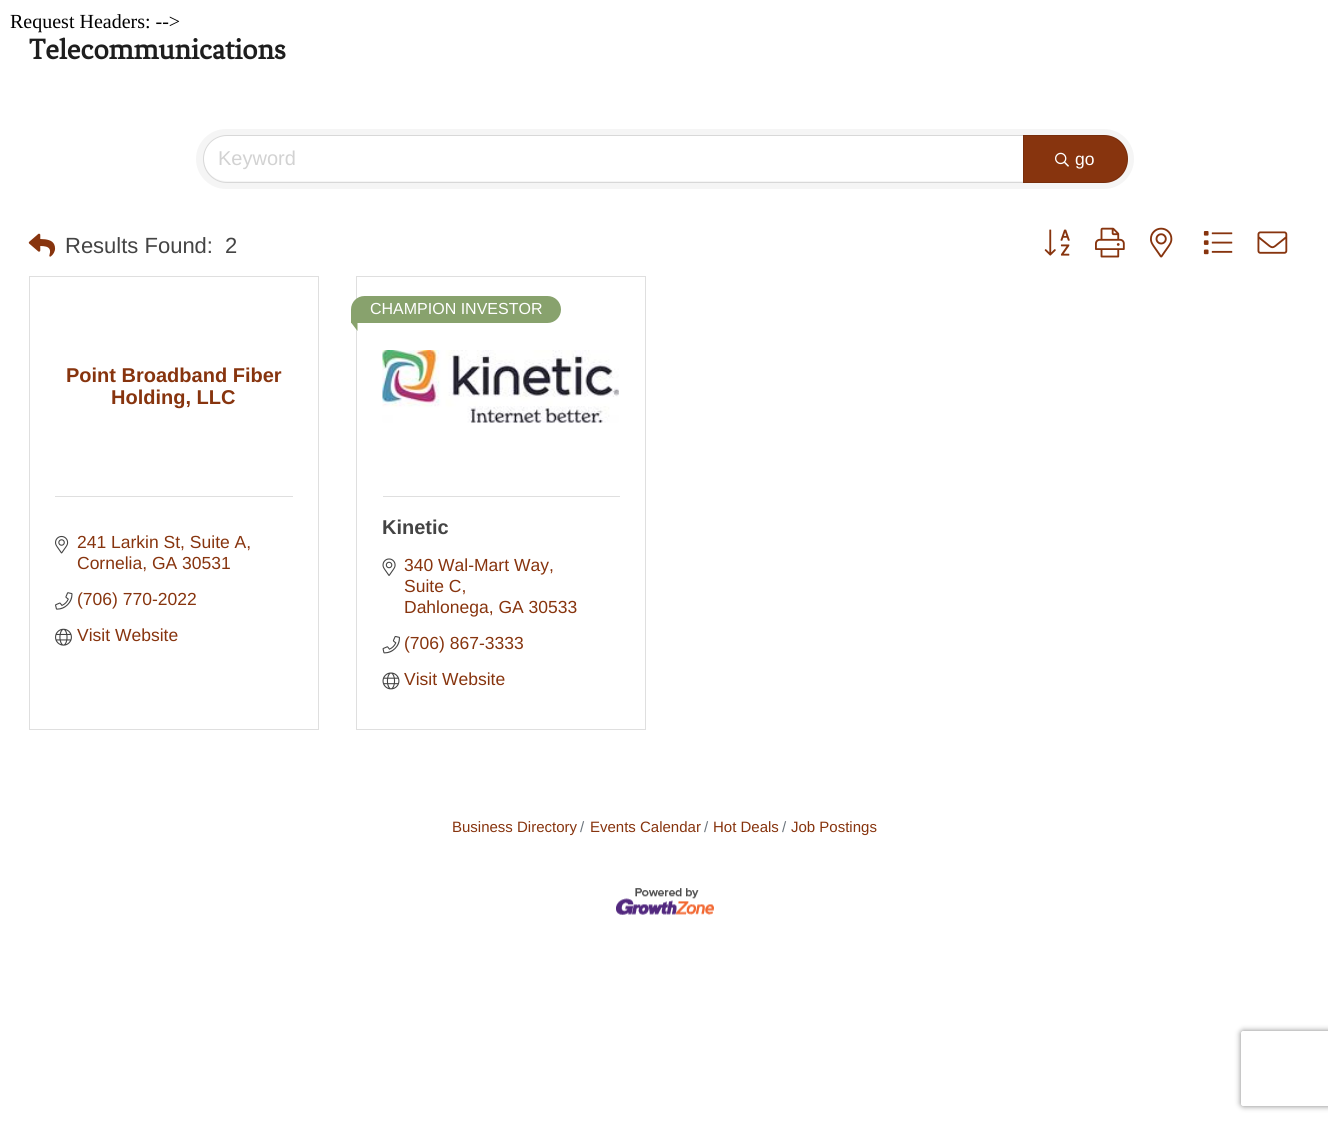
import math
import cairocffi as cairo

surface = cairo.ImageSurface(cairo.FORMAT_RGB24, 1328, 1123)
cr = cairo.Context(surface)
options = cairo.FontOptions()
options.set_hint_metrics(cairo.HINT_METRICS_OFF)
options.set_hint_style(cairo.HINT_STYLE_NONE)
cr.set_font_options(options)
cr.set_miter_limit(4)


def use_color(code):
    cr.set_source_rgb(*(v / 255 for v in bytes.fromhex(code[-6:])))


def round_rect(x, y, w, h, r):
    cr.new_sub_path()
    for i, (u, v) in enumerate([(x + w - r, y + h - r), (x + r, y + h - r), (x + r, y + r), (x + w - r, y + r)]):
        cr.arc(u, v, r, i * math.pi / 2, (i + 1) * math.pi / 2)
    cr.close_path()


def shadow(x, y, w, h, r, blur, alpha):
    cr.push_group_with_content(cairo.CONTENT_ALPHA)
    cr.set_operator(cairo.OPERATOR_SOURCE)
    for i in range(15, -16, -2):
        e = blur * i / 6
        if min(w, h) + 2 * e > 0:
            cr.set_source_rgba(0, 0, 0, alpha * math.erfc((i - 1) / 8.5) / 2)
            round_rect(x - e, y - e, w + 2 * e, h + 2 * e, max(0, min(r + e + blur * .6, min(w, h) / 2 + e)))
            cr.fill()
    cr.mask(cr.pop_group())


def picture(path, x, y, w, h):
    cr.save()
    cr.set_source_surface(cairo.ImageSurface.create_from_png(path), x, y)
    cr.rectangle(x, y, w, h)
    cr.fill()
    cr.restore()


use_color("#ffffff")
cr.paint()
cr.select_font_face("Liberation Serif")
cr.set_font_size(20)
use_color("#000000")
cr.move_to(10, 28)
cr.show_text("Request Headers: -->")
cr.select_font_face("Fenix", cairo.FONT_SLANT_NORMAL, cairo.FONT_WEIGHT_BOLD)
cr.set_font_size(30)
use_color("#1e1e1e")
cr.move_to(29, 59)
cr.show_text("Telecommunications")
use_color("#f5f5f5")
round_rect(196, 129, 938, 60, 30)
cr.fill()
use_color("#ffffff")
cr.new_path()
cr.move_to(226.5, 136)
cr.line_to(1023, 136)
cr.line_to(1023, 181)
cr.line_to(226.5, 181)
cr.curve_to(214, 181, 204, 171, 204, 158.5)
cr.curve_to(204, 146, 214, 136, 226.5, 136)
cr.close_path()
cr.fill()
cr.new_path()
cr.move_to(227, 135.5)
cr.line_to(1023.5, 135.5)
cr.line_to(1023.5, 182.5)
cr.line_to(227, 182.5)
cr.curve_to(214, 182.5, 203.5, 172, 203.5, 159)
cr.curve_to(203.5, 146, 214, 135.5, 227, 135.5)
cr.close_path()
cr.set_source_rgba(0, 0, 0, 0.12)
cr.set_line_width(1)
cr.stroke()
cr.select_font_face("Liberation Sans")
cr.set_font_size(20)
use_color("#d2d2d2")
cr.move_to(218, 165)
cr.show_text("Keyword")
use_color("#87340e")
cr.new_path()
cr.move_to(1023, 135)
cr.line_to(1104, 135)
cr.curve_to(1117.5, 135, 1128, 145.5, 1128, 159)
cr.curve_to(1128, 172.5, 1117.5, 183, 1104, 183)
cr.line_to(1023, 183)
cr.close_path()
cr.fill()
cr.new_path()
cr.move_to(1023.5, 135.5)
cr.line_to(1104, 135.5)
cr.curve_to(1117, 135.5, 1127.5, 146, 1127.5, 159)
cr.curve_to(1127.5, 172, 1117, 182.5, 1104, 182.5)
cr.line_to(1023.5, 182.5)
cr.close_path()
cr.set_source_rgba(0, 0, 0, 0.12)
cr.stroke()
picture("img1.png", 1055, 152, 14, 15)
cr.set_font_size(17.5)
use_color("#ffffff")
cr.move_to(1075, 165)
cr.show_text("go")
picture("img2.png", 28, 233, 28, 24)
cr.set_font_size(22)
use_color("#444444")
cr.move_to(65, 253)
cr.show_text("Results Found:")
cr.move_to(225, 253)
cr.show_text("2")
picture("img3.png", 1044, 229, 26, 27)
picture("img4.png", 1095, 227, 30, 31)
picture("img5.png", 1150, 227, 23, 31)
picture("img6.png", 1203, 231, 30, 24)
picture("img7.png", 1257, 231, 31, 23)
cr.rectangle(29.5, 276.5, 289, 453)
use_color("#dfdfdf")
cr.stroke()
cr.select_font_face("Liberation Sans", cairo.FONT_SLANT_NORMAL, cairo.FONT_WEIGHT_BOLD)
cr.set_font_size(20)
use_color("#87340e")
cr.move_to(66, 382)
cr.show_text("Point Broadband Fiber")
cr.move_to(111, 404)
cr.show_text("Holding, LLC")
use_color("#dfdfdf")
cr.rectangle(55, 496, 238, 1)
cr.fill()
picture("img8.png", 55, 535, 14, 19)
cr.select_font_face("Liberation Sans")
cr.set_font_size(17.5)
use_color("#87340e")
cr.move_to(77, 548)
cr.show_text("241 Larkin St, Suite A,")
cr.move_to(77, 569)
cr.show_text("Cornelia, GA 30531")
picture("img9.png", 55, 592, 18, 18)
cr.move_to(77, 605)
cr.show_text("(706) 770-2022")
picture("img10.png", 55, 628, 17, 18)
cr.move_to(77, 641)
cr.show_text("Visit Website")
cr.rectangle(356.5, 276.5, 289, 453)
use_color("#dfdfdf")
cr.stroke()
use_color("#88a26d")
cr.new_path()
cr.move_to(364.5, 296)
cr.line_to(547.5, 296)
cr.curve_to(555, 296, 561, 302, 561, 309.5)
cr.curve_to(561, 317, 555, 323, 547.5, 323)
cr.line_to(351.5, 323)
cr.curve_to(351, 323, 351, 323, 351, 322.5)
cr.line_to(351, 309.5)
cr.curve_to(351, 302, 357, 296, 364.5, 296)
cr.close_path()
cr.fill()
cr.set_font_size(16)
use_color("#ffffff")
cr.move_to(370, 314)
cr.show_text("CHAMPION INVESTOR")
use_color("#88a26d")
cr.new_path()
cr.move_to(357.5, 314)
cr.line_to(357.5, 331)
cr.line_to(351, 322.5)
cr.close_path()
cr.fill()
picture("img11.png", 382, 350, 237, 73)
use_color("#dfdfdf")
cr.rectangle(383, 496, 237, 1)
cr.fill()
cr.select_font_face("Liberation Sans", cairo.FONT_SLANT_NORMAL, cairo.FONT_WEIGHT_BOLD)
cr.set_font_size(20)
use_color("#444444")
cr.move_to(382, 534)
cr.show_text("Kinetic")
picture("img12.png", 382, 558, 14, 18)
cr.select_font_face("Liberation Sans")
cr.set_font_size(17.5)
use_color("#87340e")
cr.move_to(404, 571)
cr.show_text("340 Wal-Mart Way,")
cr.move_to(404, 592)
cr.show_text("Suite C,")
cr.move_to(404, 613)
cr.show_text("Dahlonega, GA 30533")
picture("img13.png", 382, 636, 18, 18)
cr.move_to(404, 649)
cr.show_text("(706) 867-3333")
picture("img14.png", 382, 672, 18, 18)
cr.move_to(404, 685)
cr.show_text("Visit Website")
cr.set_font_size(15)
cr.move_to(452, 832)
cr.show_text("Business Directory")
use_color("#6c757d")
cr.move_to(580, 832)
cr.show_text("/")
use_color("#87340e")
cr.move_to(590, 832)
cr.show_text("Events Calendar")
use_color("#6c757d")
cr.move_to(704, 832)
cr.show_text("/")
use_color("#87340e")
cr.move_to(713, 832)
cr.show_text("Hot Deals")
use_color("#6c757d")
cr.move_to(782, 832)
cr.show_text("/")
use_color("#87340e")
cr.move_to(791, 832)
cr.show_text("Job Postings")
picture("img15.png", 616, 888, 98, 27)
cr.save()
cr.set_fill_rule(cairo.FILL_RULE_EVEN_ODD)
cr.new_path()
cr.move_to(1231, 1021)
cr.line_to(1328, 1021)
cr.line_to(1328, 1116)
cr.line_to(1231, 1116)
cr.close_path()
cr.move_to(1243.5, 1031)
cr.line_to(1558.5, 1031)
cr.curve_to(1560, 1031, 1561, 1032, 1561, 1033.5)
cr.line_to(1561, 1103.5)
cr.curve_to(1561, 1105, 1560, 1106, 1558.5, 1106)
cr.line_to(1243.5, 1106)
cr.curve_to(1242, 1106, 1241, 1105, 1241, 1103.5)
cr.line_to(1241, 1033.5)
cr.curve_to(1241, 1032, 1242, 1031, 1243.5, 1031)
cr.close_path()
cr.clip()
use_color("#808080")
shadow(1241, 1031, 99, 75, 2.5, 3, 1)
cr.restore()
surface.write_to_png("result.png")
